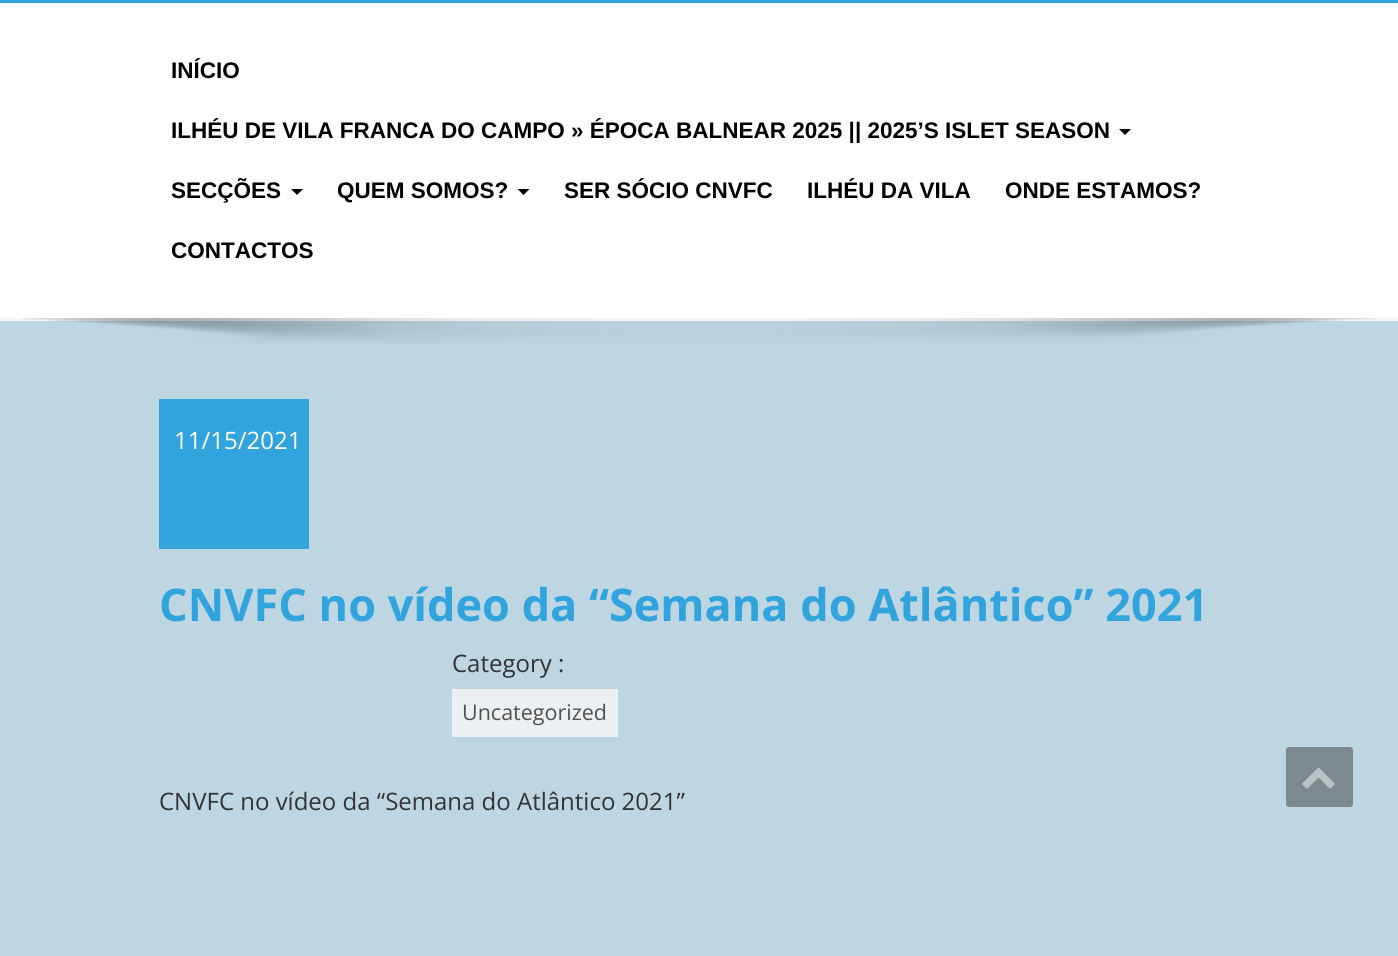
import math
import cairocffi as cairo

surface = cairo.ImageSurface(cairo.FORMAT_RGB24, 1398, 956)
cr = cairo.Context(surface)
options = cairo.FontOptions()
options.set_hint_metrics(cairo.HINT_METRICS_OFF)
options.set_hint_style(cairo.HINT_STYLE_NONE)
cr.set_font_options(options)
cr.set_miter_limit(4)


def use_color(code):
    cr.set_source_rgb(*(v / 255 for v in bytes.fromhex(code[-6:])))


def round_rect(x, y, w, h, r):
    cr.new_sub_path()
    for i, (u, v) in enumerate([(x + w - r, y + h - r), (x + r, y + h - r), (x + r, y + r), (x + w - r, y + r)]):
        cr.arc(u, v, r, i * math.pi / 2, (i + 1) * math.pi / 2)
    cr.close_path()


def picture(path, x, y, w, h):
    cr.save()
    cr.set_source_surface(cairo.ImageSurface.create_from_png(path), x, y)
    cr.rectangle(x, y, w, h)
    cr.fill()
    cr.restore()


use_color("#bed6e2")
cr.paint()
use_color("#ffffff")
cr.rectangle(0, 3, 1398, 315)
cr.fill()
use_color("#31a3dd")
cr.rectangle(0, 0, 1398, 3)
cr.fill()
use_color("#f7f5f5")
cr.rectangle(0, 318, 1398, 3)
cr.fill()
cr.select_font_face("Liberation Sans", cairo.FONT_SLANT_NORMAL, cairo.FONT_WEIGHT_BOLD)
cr.set_font_size(22.5)
use_color("#000000")
cr.move_to(171, 78)
cr.show_text("INÍCIO")
cr.move_to(171, 138)
cr.show_text("ILHÉU DE VILA FRANCA DO CAMPO » ÉPOCA BALNEAR 2025 || 2025’S ISLET SEASON")
cr.new_path()
cr.move_to(1119, 129)
cr.line_to(1131, 129)
cr.line_to(1125, 135)
cr.close_path()
cr.fill()
cr.move_to(171, 198)
cr.show_text("SECÇÕES")
cr.new_path()
cr.move_to(291, 189)
cr.line_to(303, 189)
cr.line_to(297, 195)
cr.close_path()
cr.fill()
cr.move_to(337, 198)
cr.show_text("QUEM SOMOS?")
cr.new_path()
cr.move_to(517.5, 189)
cr.line_to(529.5, 189)
cr.line_to(523.5, 195)
cr.close_path()
cr.fill()
cr.move_to(564, 198)
cr.show_text("SER SÓCIO CNVFC")
cr.move_to(807, 198)
cr.show_text("ILHÉU DA VILA")
cr.move_to(1005, 198)
cr.show_text("ONDE ESTAMOS?")
cr.move_to(171, 258)
cr.show_text("CONTACTOS")
picture("img1.png", 19, 318, 1358, 26)
use_color("#31a3dd")
cr.rectangle(159, 399, 150, 150)
cr.fill()
cr.select_font_face("Open Sans")
cr.set_font_size(24)
use_color("#ffffff")
cr.move_to(174, 449)
cr.show_text("11/15/2021")
cr.select_font_face("Open Sans", cairo.FONT_SLANT_NORMAL, cairo.FONT_WEIGHT_BOLD)
cr.set_font_size(45)
use_color("#31a3dd")
cr.move_to(159, 621)
cr.show_text("CNVFC no vídeo da “Semana do Atlântico” 2021")
cr.select_font_face("Open Sans")
cr.set_font_size(24)
use_color("#333333")
cr.move_to(452, 672)
cr.show_text("Category :")
use_color("#edf0f2")
cr.rectangle(452, 689, 166, 48)
cr.fill()
cr.set_font_size(21.5)
use_color("#515151")
cr.move_to(462, 720)
cr.show_text("Uncategorized")
cr.set_font_size(24)
use_color("#333333")
cr.move_to(159, 810)
cr.show_text("CNVFC no vídeo da “Semana do Atlântico 2021”")
use_color("#7d898f")
round_rect(1286, 747, 67, 60, 3)
cr.fill()
picture("img2.png", 1302, 767, 33, 22)
surface.write_to_png("result.png")
